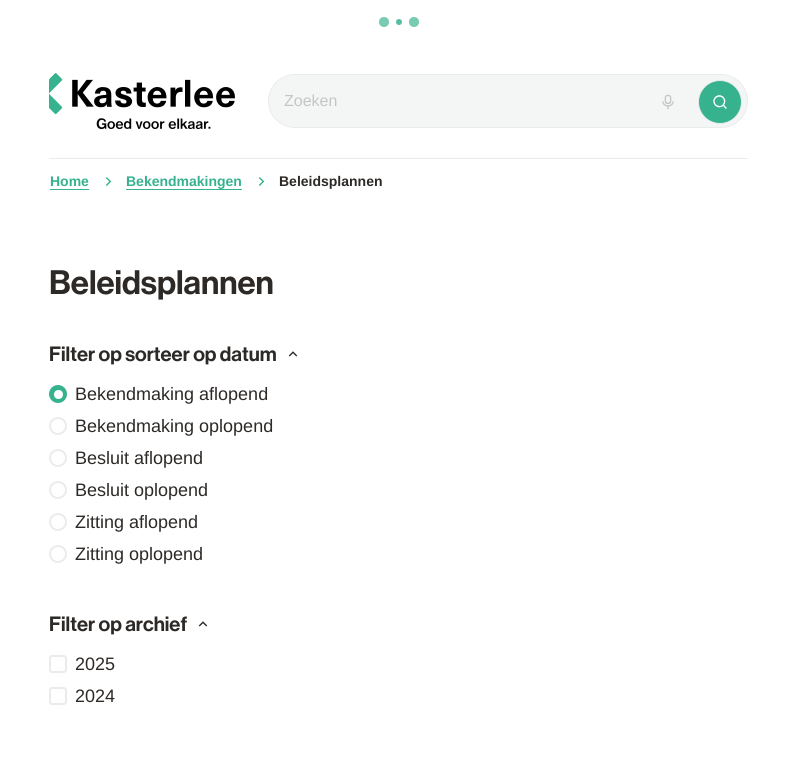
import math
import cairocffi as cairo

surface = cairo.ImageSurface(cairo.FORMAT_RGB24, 797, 760)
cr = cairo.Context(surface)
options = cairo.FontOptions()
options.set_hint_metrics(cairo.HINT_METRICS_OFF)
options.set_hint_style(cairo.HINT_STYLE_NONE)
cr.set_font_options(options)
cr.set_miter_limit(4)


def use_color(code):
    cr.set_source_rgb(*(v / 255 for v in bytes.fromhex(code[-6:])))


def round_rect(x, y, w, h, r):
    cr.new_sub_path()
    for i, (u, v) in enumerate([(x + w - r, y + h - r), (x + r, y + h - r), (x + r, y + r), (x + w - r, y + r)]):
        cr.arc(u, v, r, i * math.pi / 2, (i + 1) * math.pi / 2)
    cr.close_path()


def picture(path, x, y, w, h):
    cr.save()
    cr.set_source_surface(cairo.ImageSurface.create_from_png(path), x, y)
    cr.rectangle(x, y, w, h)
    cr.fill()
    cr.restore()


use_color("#ffffff")
cr.paint()
use_color("#78cab3")
cr.arc(384, 22, 5, 0, 2 * math.pi)
cr.fill()
use_color("#57bea1")
cr.arc(399, 22, 3, 0, 2 * math.pi)
cr.fill()
use_color("#78cab3")
cr.arc(414, 22, 5, 0, 2 * math.pi)
cr.fill()
picture("img1.png", 49, 73, 186, 57)
use_color("#f4f6f6")
round_rect(268.5, 74.5, 479, 53, 26.5)
cr.fill_preserve()
use_color("#ebebeb")
cr.set_line_width(1)
cr.stroke()
cr.select_font_face("Liberation Sans")
cr.set_font_size(16)
use_color("#c5c5c5")
cr.move_to(284, 106)
cr.show_text("Zoeken")
picture("img2.png", 662, 94, 12, 16)
use_color("#37b28f")
cr.arc(720, 102, 21.5, 0, 2 * math.pi)
cr.fill_preserve()
use_color("#ebebeb")
cr.stroke()
picture("img3.png", 713, 95, 14, 14)
cr.rectangle(49, 158, 699, 1)
cr.fill()
cr.select_font_face("Liberation Sans", cairo.FONT_SLANT_NORMAL, cairo.FONT_WEIGHT_BOLD)
cr.set_font_size(14)
use_color("#37b28f")
cr.move_to(50, 186)
cr.show_text("Home")
cr.rectangle(50, 189, 39, 1)
cr.fill()
picture("img4.png", 106, 177, 6, 9)
cr.move_to(126, 186)
cr.show_text("Bekendmakingen")
cr.rectangle(126, 189, 116, 1)
cr.fill()
picture("img5.png", 259, 177, 6, 9)
use_color("#2d2926")
cr.move_to(279, 186)
cr.show_text("Beleidsplannen")
cr.select_font_face("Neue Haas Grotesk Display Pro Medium")
cr.set_font_size(33.25)
cr.move_to(49, 294)
cr.show_text("Beleidsplannen")
cr.set_font_size(20.3)
cr.move_to(49, 361)
cr.show_text("Filter op sorteer op datum")
picture("img6.png", 288, 351, 10, 6)
use_color("#37b28f")
cr.arc(58, 394, 8, 0, 2 * math.pi)
cr.fill_preserve()
cr.set_line_width(2)
cr.stroke()
use_color("#ffffff")
cr.new_path()
cr.move_to(58.5, 390)
cr.curve_to(52.5, 390, 52.5, 399, 58.5, 399)
cr.curve_to(64.5, 399, 64.5, 390, 58.5, 390)
cr.close_path()
cr.fill()
cr.select_font_face("Liberation Sans")
cr.set_font_size(18)
use_color("#2d2926")
cr.move_to(75, 400)
cr.show_text("Bekendmaking aflopend")
cr.new_path()
cr.arc(58, 426, 8, 0, 2 * math.pi)
use_color("#ebebeb")
cr.stroke()
use_color("#2d2926")
cr.move_to(75, 432)
cr.show_text("Bekendmaking oplopend")
cr.new_path()
cr.arc(58, 458, 8, 0, 2 * math.pi)
use_color("#ebebeb")
cr.stroke()
use_color("#2d2926")
cr.move_to(75, 464)
cr.show_text("Besluit aflopend")
cr.new_path()
cr.arc(58, 490, 8, 0, 2 * math.pi)
use_color("#ebebeb")
cr.stroke()
use_color("#2d2926")
cr.move_to(75, 496)
cr.show_text("Besluit oplopend")
cr.new_path()
cr.arc(58, 522, 8, 0, 2 * math.pi)
use_color("#ebebeb")
cr.stroke()
use_color("#2d2926")
cr.move_to(75, 528)
cr.show_text("Zitting aflopend")
cr.new_path()
cr.arc(58, 554, 8, 0, 2 * math.pi)
use_color("#ebebeb")
cr.stroke()
use_color("#2d2926")
cr.move_to(75, 560)
cr.show_text("Zitting oplopend")
cr.select_font_face("Neue Haas Grotesk Display Pro Medium")
cr.set_font_size(20.3)
cr.move_to(49, 631)
cr.show_text("Filter op archief")
picture("img7.png", 198, 621, 10, 6)
round_rect(50, 656, 16, 16, 2)
use_color("#ebebeb")
cr.stroke()
cr.select_font_face("Liberation Sans")
cr.set_font_size(18)
use_color("#2d2926")
cr.move_to(75, 670)
cr.show_text("2025")
round_rect(50, 688, 16, 16, 2)
use_color("#ebebeb")
cr.stroke()
use_color("#2d2926")
cr.move_to(75, 702)
cr.show_text("2024")
surface.write_to_png("result.png")
